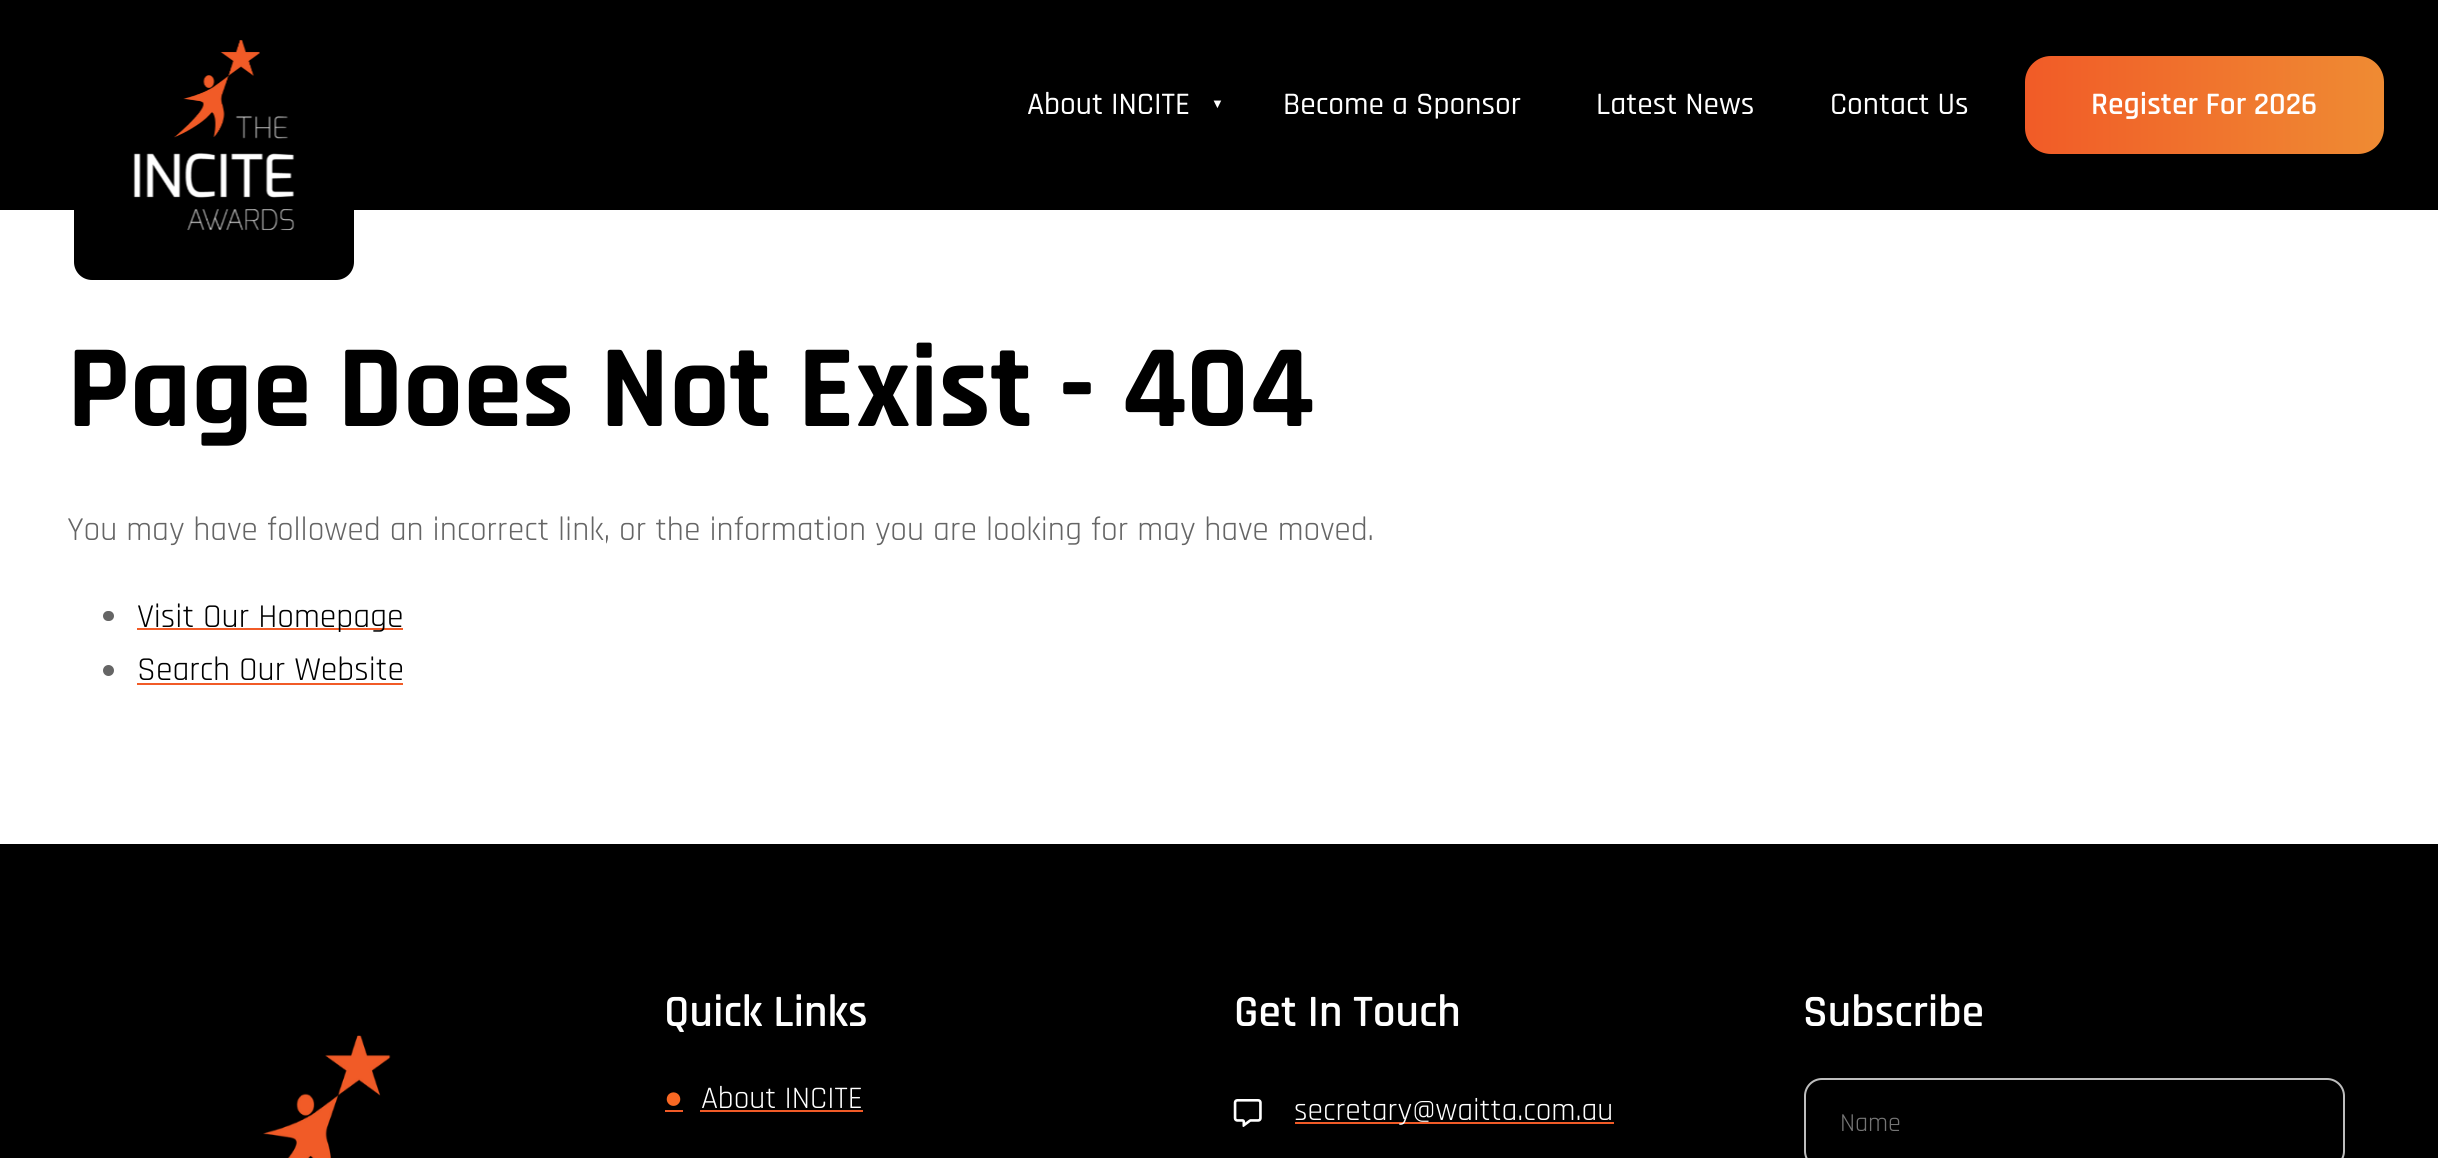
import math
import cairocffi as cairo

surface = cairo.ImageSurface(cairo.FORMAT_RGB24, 2438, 1158)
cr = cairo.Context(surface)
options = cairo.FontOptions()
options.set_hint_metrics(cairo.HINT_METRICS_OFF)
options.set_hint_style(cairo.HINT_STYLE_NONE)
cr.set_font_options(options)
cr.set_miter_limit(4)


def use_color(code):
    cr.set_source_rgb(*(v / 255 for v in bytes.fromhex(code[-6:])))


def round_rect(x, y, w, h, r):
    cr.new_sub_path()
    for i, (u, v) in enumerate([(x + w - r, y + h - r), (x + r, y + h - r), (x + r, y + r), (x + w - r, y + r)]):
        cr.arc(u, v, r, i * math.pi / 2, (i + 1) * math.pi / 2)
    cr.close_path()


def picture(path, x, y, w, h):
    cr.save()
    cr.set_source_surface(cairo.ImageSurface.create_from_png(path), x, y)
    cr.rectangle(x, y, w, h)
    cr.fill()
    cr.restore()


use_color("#ffffff")
cr.paint()
use_color("#000000")
cr.rectangle(0, 0, 2438, 210)
cr.fill()
round_rect(74, 0, 280, 280, 18)
cr.fill()
picture("img1.png", 133, 40, 162, 191)
cr.select_font_face("Rajdhani Medium")
cr.set_font_size(31.5)
use_color("#ffffff")
cr.move_to(1027, 114)
cr.show_text("About INCITE")
cr.select_font_face("Liberation Sans")
cr.set_font_size(13)
cr.move_to(1211, 108)
cr.show_text("▼")
cr.select_font_face("Rajdhani Medium")
cr.set_font_size(31.5)
cr.move_to(1283, 114)
cr.show_text("Become a Sponsor")
cr.move_to(1596, 114)
cr.show_text("Latest News")
cr.move_to(1830, 114)
cr.show_text("Contact Us")
gradient = cairo.LinearGradient(2384, 105, 2025, 105)
gradient.add_color_stop_rgba(0, 0.937, 0.545, 0.2, 1)
gradient.add_color_stop_rgba(1, 0.945, 0.357, 0.153, 1)
cr.set_source(gradient)
round_rect(2025, 56, 359, 98, 26)
cr.fill()
cr.select_font_face("Rajdhani SemiBold")
use_color("#ffffff")
cr.move_to(2091, 114)
cr.show_text("Register For 2026")
cr.select_font_face("Rajdhani", cairo.FONT_SLANT_NORMAL, cairo.FONT_WEIGHT_BOLD)
cr.set_font_size(118.6)
use_color("#000000")
cr.move_to(67, 426)
cr.show_text("Page Does Not Exist - 404")
cr.select_font_face("Rajdhani")
cr.set_font_size(33.6)
use_color("#656565")
cr.move_to(67, 540)
cr.show_text("You may have followed an incorrect link, or the information you are looking for may have moved.")
round_rect(103, 611, 11, 10, 5)
cr.fill()
use_color("#f15b27")
cr.rectangle(137, 628, 266, 2)
cr.fill()
use_color("#000000")
cr.move_to(137, 627)
cr.show_text("Visit Our Homepage")
use_color("#656565")
cr.new_path()
cr.arc(108.5, 670.5, 5.5, 0, 2 * math.pi)
cr.fill()
use_color("#000000")
cr.move_to(137, 680)
cr.show_text("Search Our Website")
use_color("#f15b27")
cr.rectangle(137, 683, 266, 2)
cr.fill()
use_color("#000000")
cr.rectangle(0, 844, 2438, 314)
cr.fill()
picture("img2.png", 263, 1035, 128, 123)
cr.select_font_face("Rajdhani SemiBold")
cr.set_font_size(45.25)
use_color("#ffffff")
cr.move_to(664, 1026)
cr.show_text("Quick Links")
cr.select_font_face("Liberation Sans")
cr.set_font_size(31.5)
use_color("#f86823")
cr.move_to(664, 1108)
cr.show_text("●")
use_color("#f15b27")
cr.rectangle(665, 1110, 18, 2)
cr.fill()
cr.select_font_face("Rajdhani")
use_color("#ffffff")
cr.move_to(701, 1108)
cr.show_text("About INCITE")
use_color("#f15b27")
cr.rectangle(700, 1110, 163, 2)
cr.fill()
cr.select_font_face("Rajdhani SemiBold")
cr.set_font_size(45.25)
use_color("#ffffff")
cr.move_to(1234, 1026)
cr.show_text("Get In Touch")
picture("img3.png", 1233, 1099, 29, 28)
use_color("#f15b27")
cr.rectangle(1295, 1122, 319, 2)
cr.fill()
cr.select_font_face("Rajdhani")
cr.set_font_size(31.5)
use_color("#ffffff")
cr.move_to(1294, 1120)
cr.show_text("secretary@waitta.com.au")
cr.select_font_face("Rajdhani SemiBold")
cr.set_font_size(45.25)
cr.move_to(1803, 1026)
cr.show_text("Subscribe")
round_rect(1805, 1079, 539, 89, 17)
use_color("#bebebe")
cr.stroke()
cr.select_font_face("Rajdhani")
cr.set_font_size(26)
use_color("#757575")
cr.move_to(1840, 1131)
cr.show_text("Name")
surface.write_to_png("result.png")
